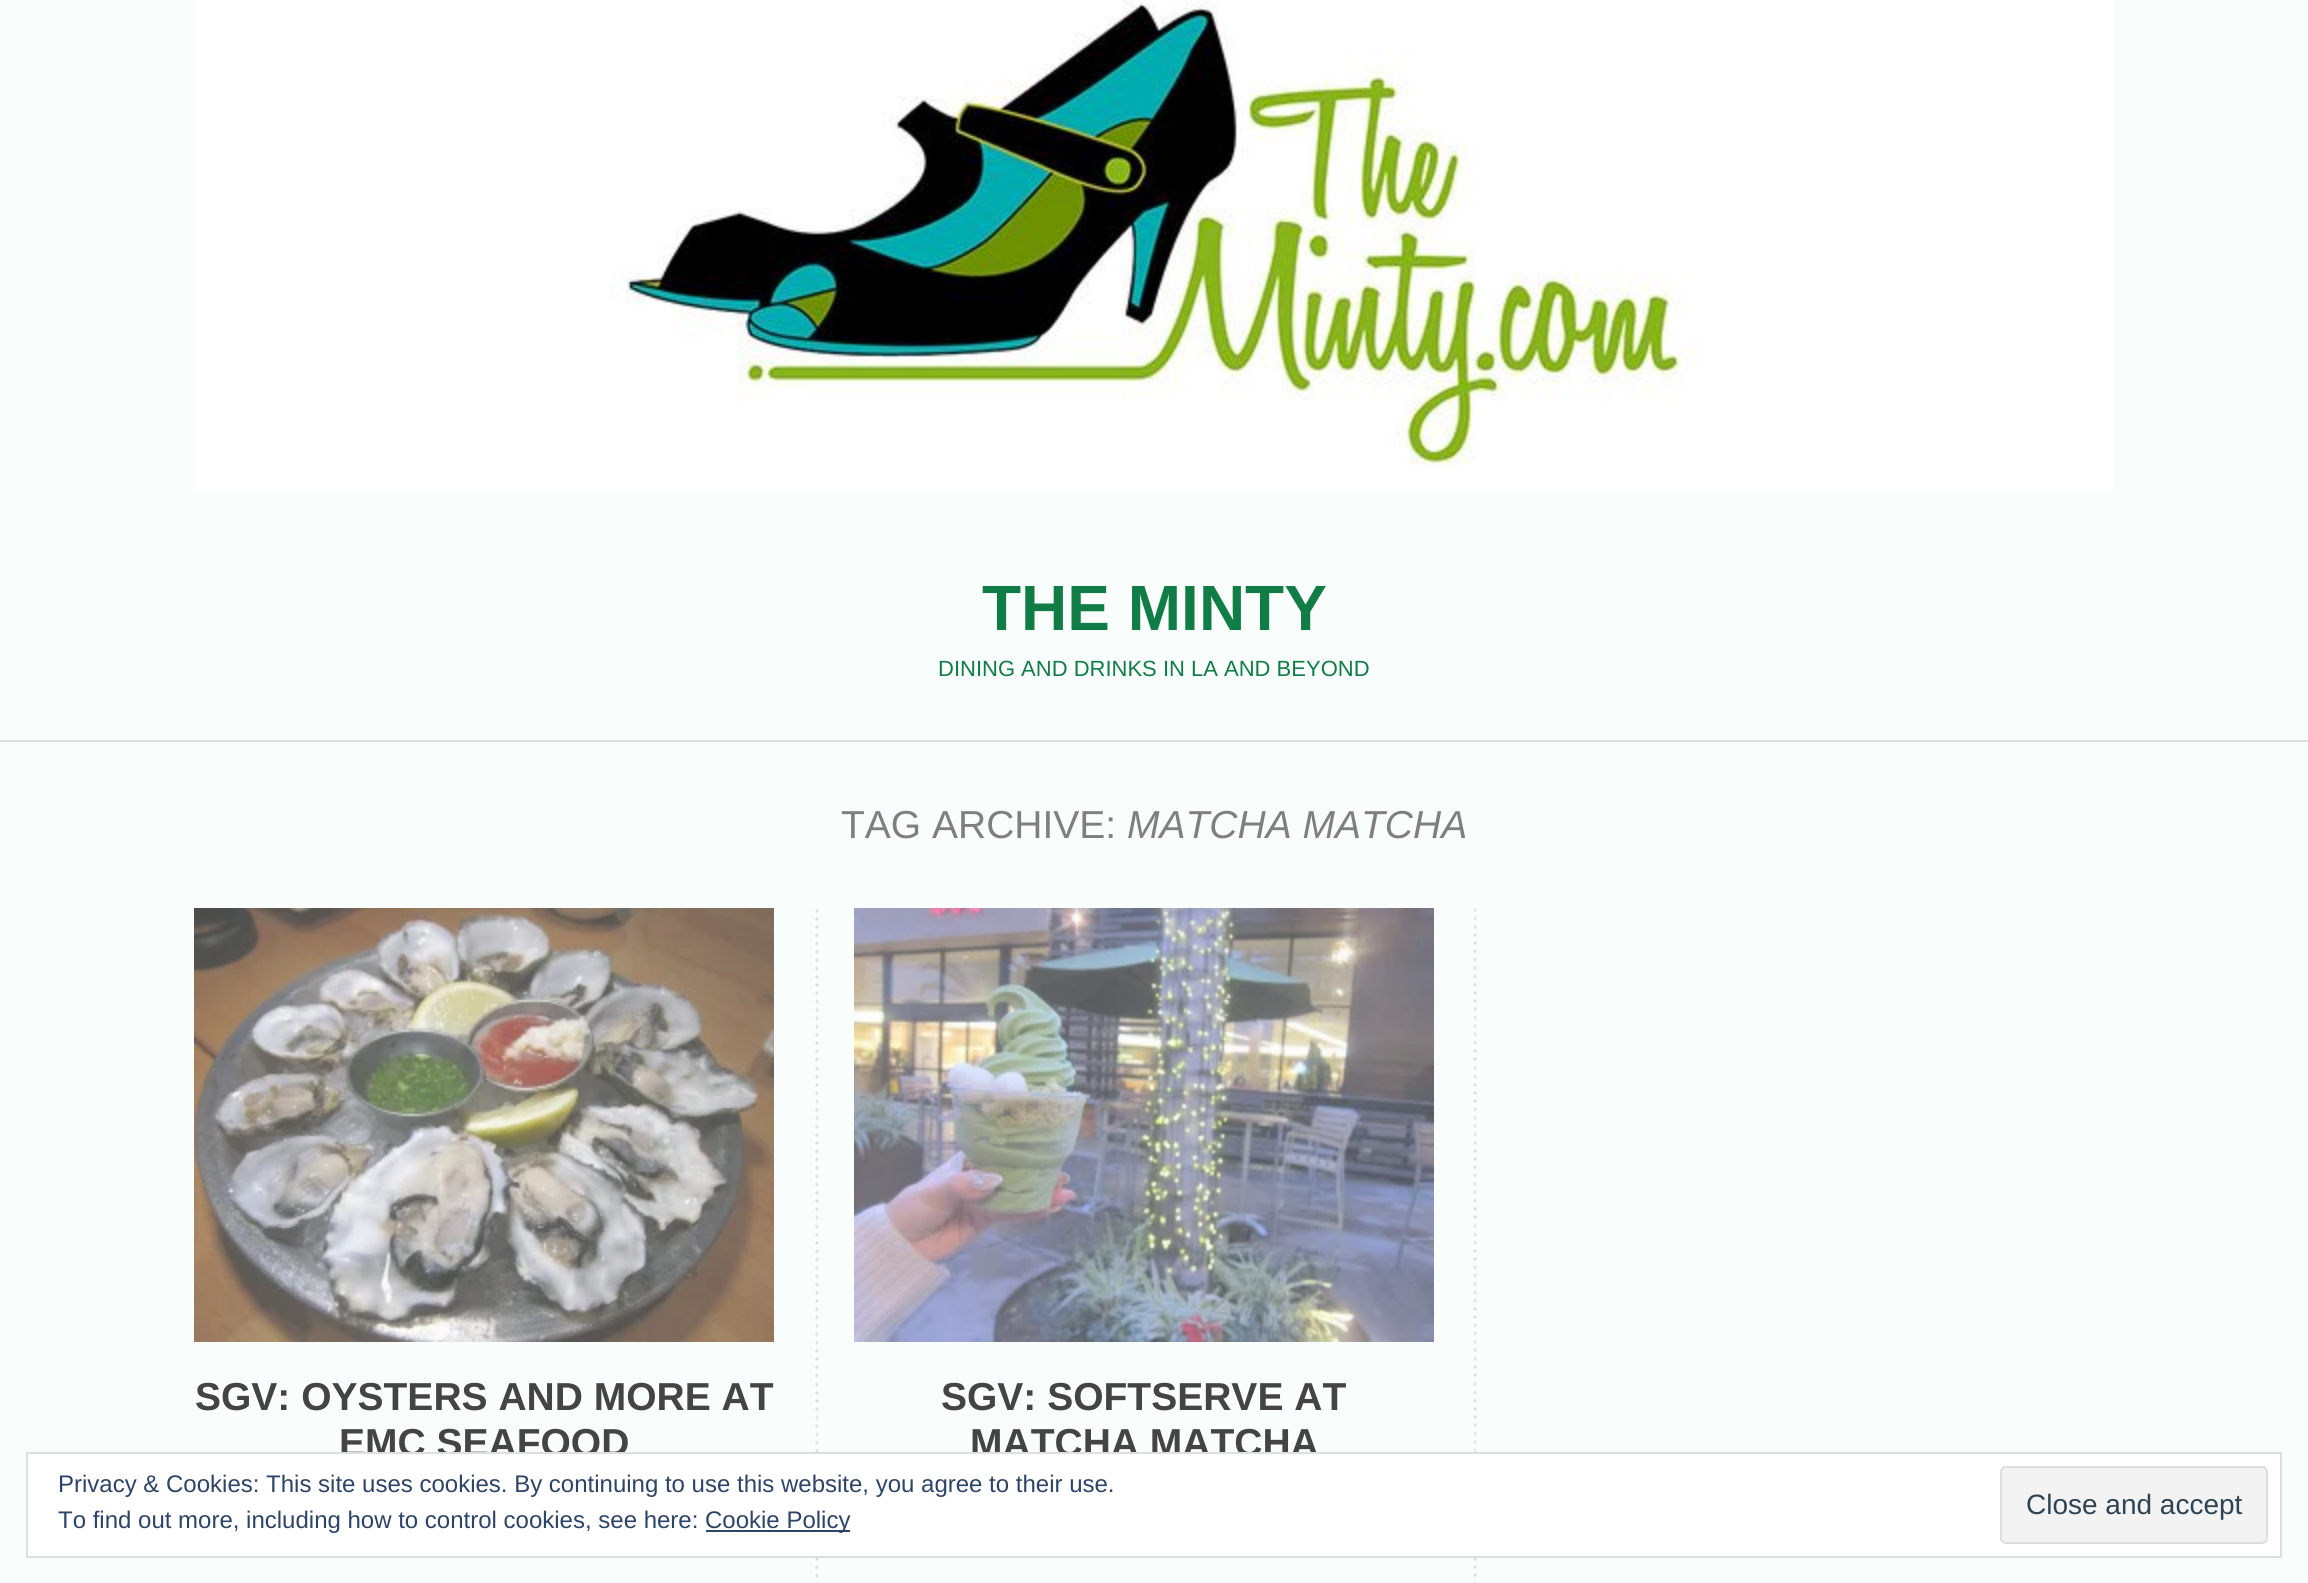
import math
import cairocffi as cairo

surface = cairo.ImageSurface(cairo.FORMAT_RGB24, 2308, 1583)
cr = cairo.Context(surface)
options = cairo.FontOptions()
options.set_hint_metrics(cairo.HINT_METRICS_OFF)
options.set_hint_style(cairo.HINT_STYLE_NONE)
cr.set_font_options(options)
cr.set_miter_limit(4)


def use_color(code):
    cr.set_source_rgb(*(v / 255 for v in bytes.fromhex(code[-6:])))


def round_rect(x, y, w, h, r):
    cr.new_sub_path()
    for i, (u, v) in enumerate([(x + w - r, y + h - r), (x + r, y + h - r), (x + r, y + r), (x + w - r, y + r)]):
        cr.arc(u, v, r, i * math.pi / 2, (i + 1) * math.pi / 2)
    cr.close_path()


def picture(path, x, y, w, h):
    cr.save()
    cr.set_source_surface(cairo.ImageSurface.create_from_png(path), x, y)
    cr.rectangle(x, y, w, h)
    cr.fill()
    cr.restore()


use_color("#f9fdfc")
cr.paint()
use_color("#dedede")
cr.rectangle(0, 740, 2308, 2)
cr.fill()
picture("img1.png", 194, 0, 1920, 492)
cr.select_font_face("Liberation Sans", cairo.FONT_SLANT_NORMAL, cairo.FONT_WEIGHT_BOLD)
cr.set_font_size(64)
use_color("#107d47")
cr.move_to(982, 630)
cr.show_text("THE MINTY")
cr.select_font_face("Liberation Sans")
cr.set_font_size(22)
cr.move_to(938, 676)
cr.show_text("DINING AND DRINKS IN LA AND BEYOND")
cr.set_font_size(39)
use_color("#7f7f7f")
cr.move_to(841, 838)
cr.show_text("TAG ARCHIVE:")
cr.select_font_face("Liberation Sans", cairo.FONT_SLANT_ITALIC)
cr.move_to(1127, 838)
cr.show_text("MATCHA MATCHA")
picture("img2.png", 815, 908, 662, 675)
picture("img3.png", 194, 908, 580, 434)
cr.select_font_face("Liberation Sans", cairo.FONT_SLANT_NORMAL, cairo.FONT_WEIGHT_BOLD)
use_color("#444444")
cr.move_to(195, 1410)
cr.show_text("SGV: OYSTERS AND MORE AT")
cr.move_to(339, 1456)
cr.show_text("EMC SEAFOOD")
picture("img4.png", 854, 908, 580, 434)
cr.move_to(941, 1410)
cr.show_text("SGV: SOFTSERVE AT")
cr.move_to(970, 1456)
cr.show_text("MATCHA MATCHA")
use_color("#ffffff")
cr.rectangle(27, 1453, 2254, 104)
cr.fill_preserve()
use_color("#dedede")
cr.stroke()
cr.select_font_face("Liberation Sans")
cr.set_font_size(24)
use_color("#2e4467")
cr.move_to(58, 1492)
cr.show_text("Privacy & Cookies: This site uses cookies. By continuing to use this website, you agree to their use.")
cr.move_to(58, 1528)
cr.show_text("To find out more, including how to control cookies, see here:")
cr.rectangle(706, 1530, 144, 2)
cr.fill()
cr.move_to(705, 1528)
cr.show_text("Cookie Policy")
use_color("#f3f3f3")
round_rect(2001, 1467, 266, 76, 5)
cr.fill_preserve()
use_color("#dedede")
cr.stroke()
cr.set_font_size(28)
use_color("#2e4453")
cr.move_to(2026, 1514)
cr.show_text("Close and accept")
surface.write_to_png("result.png")
